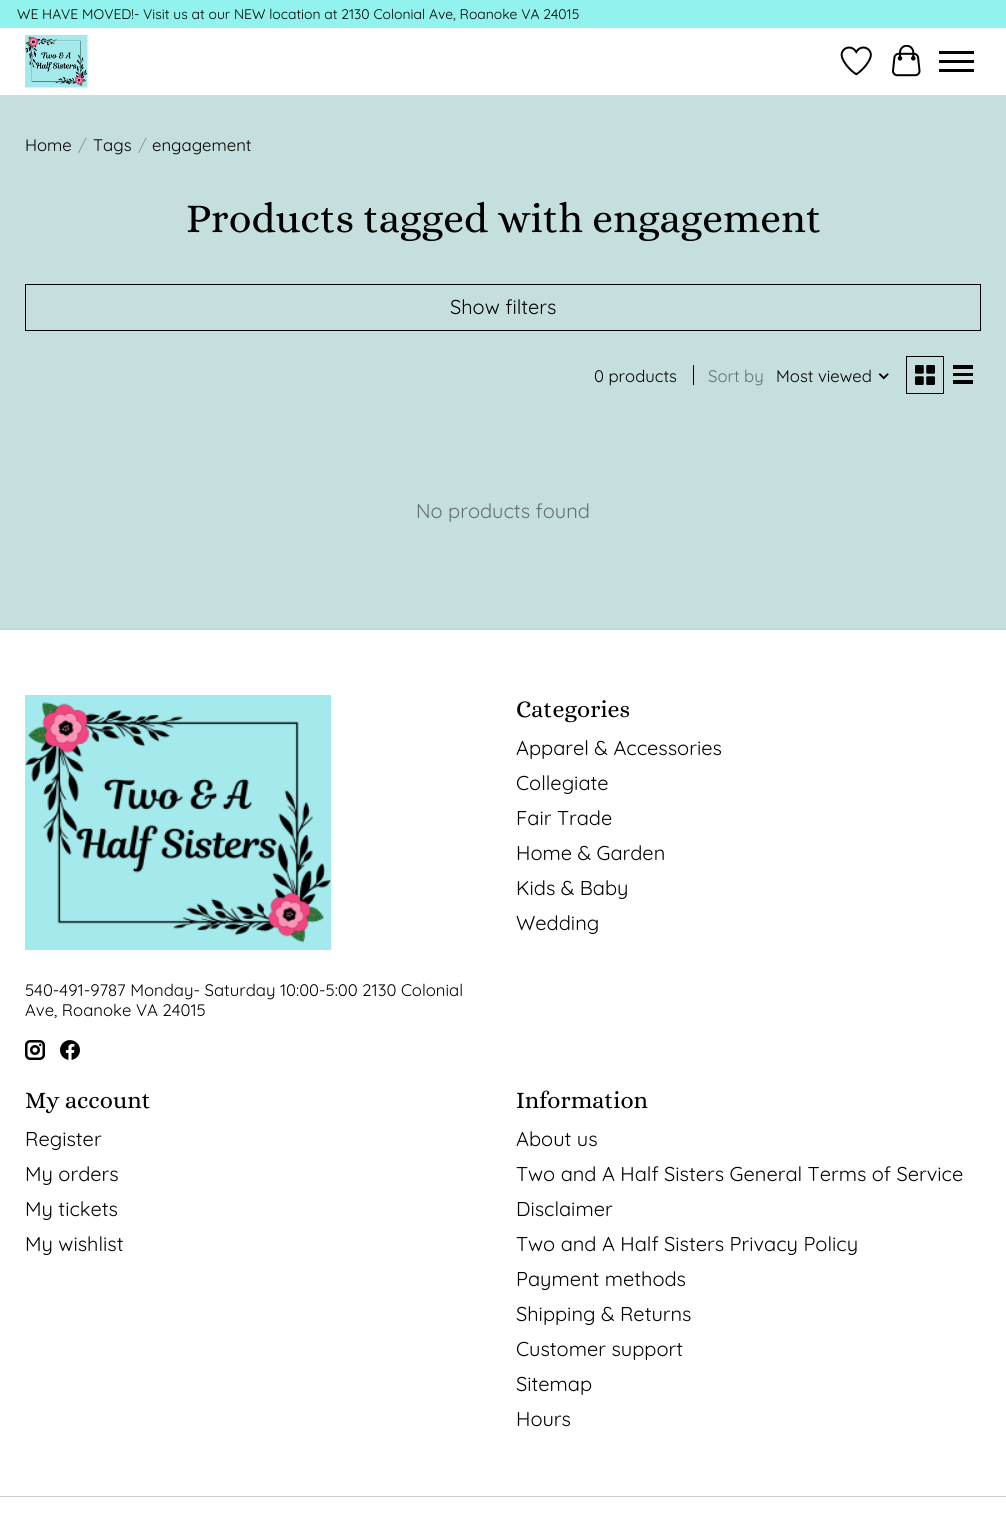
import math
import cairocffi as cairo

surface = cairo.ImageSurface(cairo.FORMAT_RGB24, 1006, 1520)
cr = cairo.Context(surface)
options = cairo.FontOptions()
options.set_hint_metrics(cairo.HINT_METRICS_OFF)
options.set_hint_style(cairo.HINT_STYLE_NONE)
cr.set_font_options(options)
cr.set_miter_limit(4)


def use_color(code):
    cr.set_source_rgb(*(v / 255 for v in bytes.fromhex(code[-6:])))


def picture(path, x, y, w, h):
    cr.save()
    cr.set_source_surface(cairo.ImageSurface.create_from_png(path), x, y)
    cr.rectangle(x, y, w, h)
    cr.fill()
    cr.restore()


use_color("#c5dfde")
cr.paint()
use_color("#ffffff")
cr.rectangle(0, 28, 1006, 67)
cr.fill()
use_color("#91f2ee")
cr.rectangle(0, 0, 1006, 28)
cr.fill()
cr.select_font_face("Quicksand")
cr.set_font_size(13.9)
use_color("#060000")
cr.move_to(17, 19)
cr.show_text("WE HAVE MOVED!- Visit us at our NEW location at 2130 Colonial Ave, Roanoke VA 24015")
picture("img1.png", 25, 35, 63, 53)
picture("img2.png", 840, 46, 32, 30)
picture("img3.png", 892, 45, 29, 32)
use_color("#000000")
cr.rectangle(939, 60, 35, 3)
cr.fill()
cr.rectangle(939, 51, 35, 3)
cr.fill()
cr.rectangle(939, 69, 35, 3)
cr.fill()
cr.set_font_size(16.7)
cr.move_to(25, 151)
cr.show_text("Home")
use_color("#8a9c9b")
cr.move_to(78, 151)
cr.show_text("/")
use_color("#000000")
cr.move_to(93, 151)
cr.show_text("Tags")
use_color("#8a9c9b")
cr.move_to(138, 151)
cr.show_text("/")
use_color("#000000")
cr.move_to(152, 151)
cr.show_text("engagement")
cr.select_font_face("Alice")
cr.set_font_size(41.5)
cr.move_to(186, 232)
cr.show_text("Products tagged with engagement")
cr.rectangle(25.5, 284.5, 955, 46)
cr.set_line_width(1)
cr.stroke()
cr.select_font_face("Quicksand")
cr.set_font_size(20)
cr.move_to(450, 314)
cr.show_text("Show filters")
cr.set_font_size(16.7)
cr.move_to(594, 382)
cr.show_text("0 products")
cr.rectangle(693, 365, 1, 20)
cr.fill()
use_color("#63706f")
cr.move_to(708, 382)
cr.show_text("Sort by")
use_color("#000000")
cr.move_to(776, 382)
cr.show_text("Most viewed")
picture("img4.png", 878, 373, 11, 7)
cr.rectangle(906.5, 356.5, 37, 37)
cr.stroke()
picture("img5.png", 915, 365, 20, 20)
cr.rectangle(953, 365, 20, 4)
cr.fill()
cr.rectangle(953, 373, 20, 3)
cr.fill()
cr.rectangle(953, 380, 20, 4)
cr.fill()
cr.set_font_size(20)
use_color("#63706f")
cr.move_to(416, 518)
cr.show_text("No products found")
use_color("#ffffff")
cr.rectangle(0, 630, 1006, 890)
cr.fill()
use_color("#cccccc")
cr.rectangle(0, 629, 1006, 1)
cr.fill()
cr.select_font_face("Alice")
cr.set_font_size(24)
use_color("#000000")
cr.move_to(516, 717)
cr.show_text("Categories")
cr.select_font_face("Quicksand")
cr.set_font_size(20)
cr.move_to(516, 755)
cr.show_text("Apparel & Accessories")
cr.move_to(516, 790)
cr.show_text("Collegiate")
cr.move_to(516, 825)
cr.show_text("Fair Trade")
cr.move_to(516, 860)
cr.show_text("Home & Garden")
cr.move_to(516, 895)
cr.show_text("Kids & Baby")
cr.move_to(516, 930)
cr.show_text("Wedding")
picture("img6.png", 25, 695, 307, 255)
cr.set_font_size(16.7)
cr.move_to(25, 996)
cr.show_text("540-491-9787 Monday- Saturday 10:00-5:00 2130 Colonial")
cr.move_to(25, 1016)
cr.show_text("Ave, Roanoke VA 24015")
picture("img7.png", 25, 1040, 20, 20)
picture("img8.png", 60, 1040, 20, 20)
cr.select_font_face("Alice")
cr.set_font_size(24)
cr.move_to(25, 1108)
cr.show_text("My account")
cr.select_font_face("Quicksand")
cr.set_font_size(20)
cr.move_to(25, 1146)
cr.show_text("Register")
cr.move_to(25, 1181)
cr.show_text("My orders")
cr.move_to(25, 1216)
cr.show_text("My tickets")
cr.move_to(25, 1251)
cr.show_text("My wishlist")
cr.select_font_face("Alice")
cr.set_font_size(24)
cr.move_to(516, 1108)
cr.show_text("Information")
cr.select_font_face("Quicksand")
cr.set_font_size(20)
cr.move_to(516, 1146)
cr.show_text("About us")
cr.move_to(516, 1181)
cr.show_text("Two and A Half Sisters General Terms of Service")
cr.move_to(516, 1216)
cr.show_text("Disclaimer")
cr.move_to(516, 1251)
cr.show_text("Two and A Half Sisters Privacy Policy")
cr.move_to(516, 1286)
cr.show_text("Payment methods")
cr.move_to(516, 1321)
cr.show_text("Shipping & Returns")
cr.move_to(516, 1356)
cr.show_text("Customer support")
cr.move_to(516, 1391)
cr.show_text("Sitemap")
cr.move_to(516, 1426)
cr.show_text("Hours")
use_color("#cccccc")
cr.rectangle(0, 1496, 1006, 1)
cr.fill()
surface.write_to_png("result.png")
